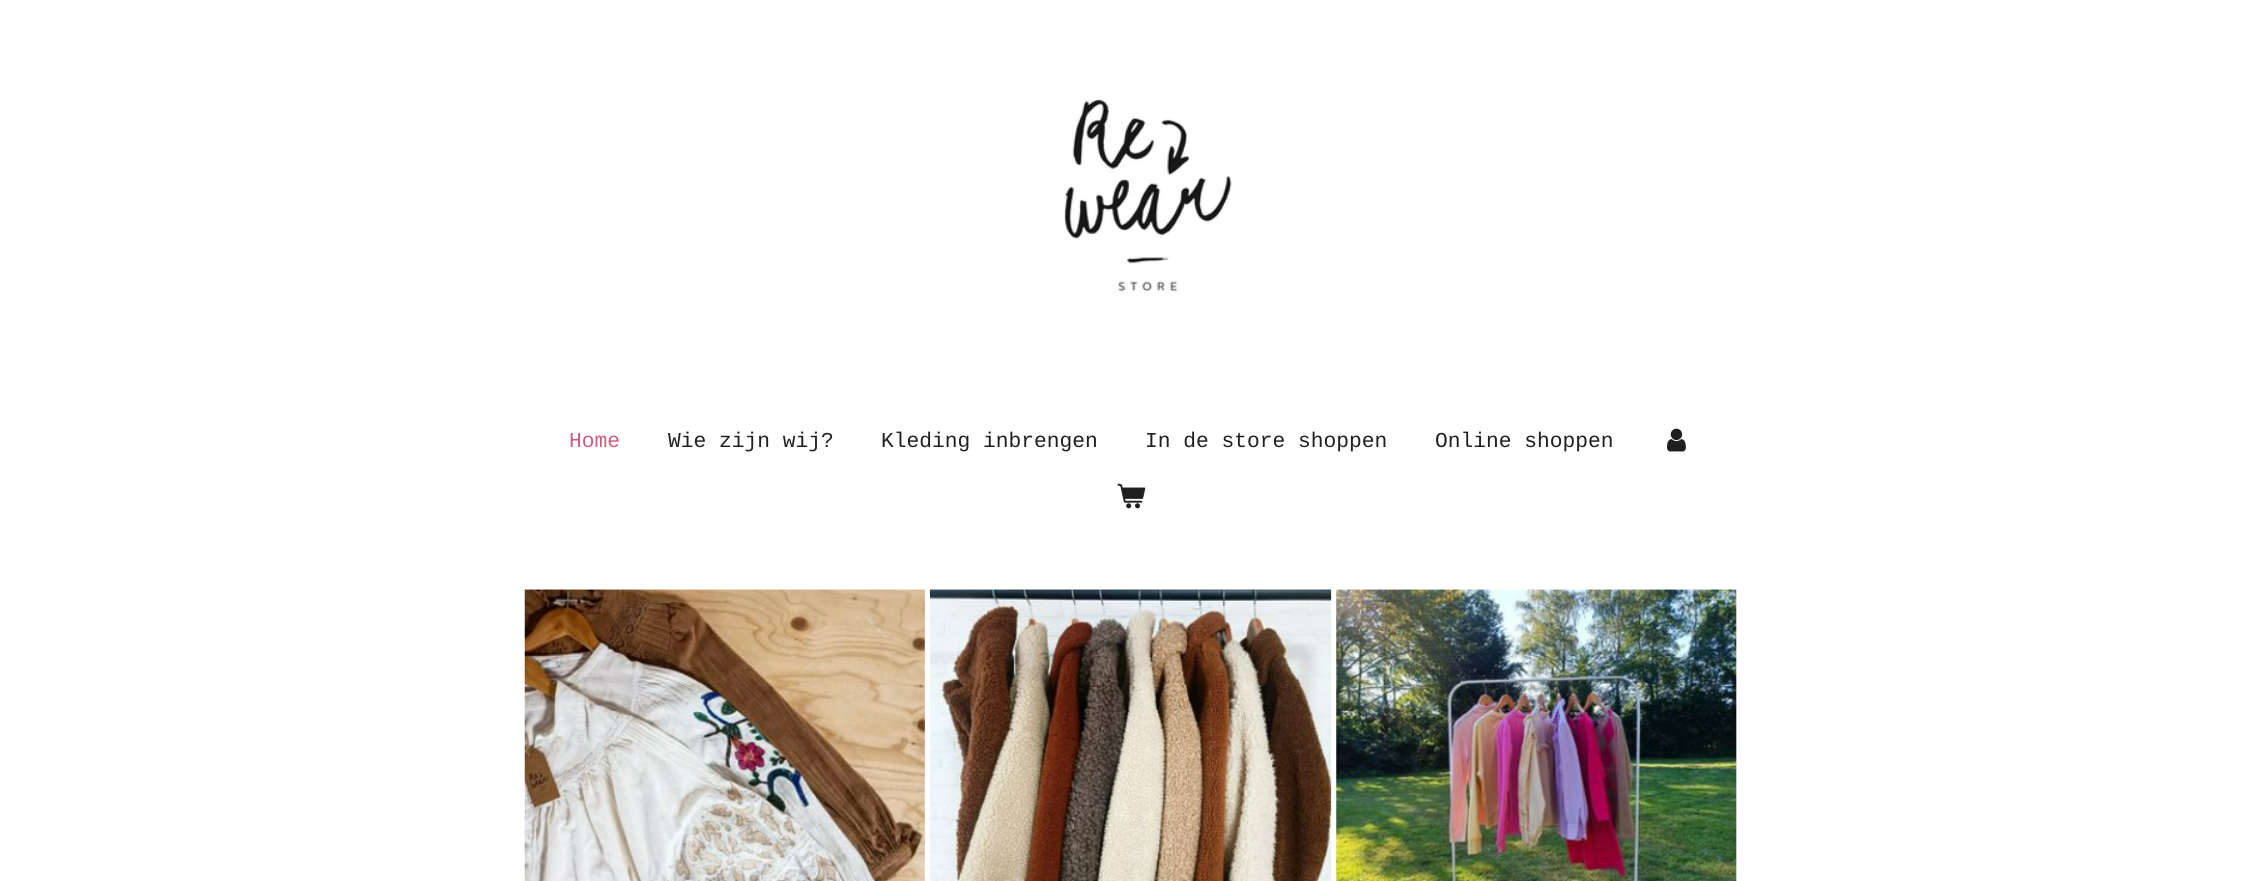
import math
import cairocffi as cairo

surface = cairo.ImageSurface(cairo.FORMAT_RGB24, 2259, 881)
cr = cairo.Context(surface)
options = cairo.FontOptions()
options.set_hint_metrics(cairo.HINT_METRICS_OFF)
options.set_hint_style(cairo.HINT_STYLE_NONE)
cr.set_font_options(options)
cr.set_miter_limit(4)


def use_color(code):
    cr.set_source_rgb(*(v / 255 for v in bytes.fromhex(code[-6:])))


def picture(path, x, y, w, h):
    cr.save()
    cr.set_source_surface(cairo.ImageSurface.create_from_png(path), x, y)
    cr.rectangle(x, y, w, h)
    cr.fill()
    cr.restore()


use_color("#ffffff")
cr.paint()
picture("img1.png", 1064, 99, 168, 193)
cr.select_font_face("Liberation Mono")
cr.set_font_size(21.25)
use_color("#cc5e7d")
cr.move_to(569, 447)
cr.show_text("Home")
use_color("#202020")
cr.move_to(668, 447)
cr.show_text("Wie zijn wij?")
cr.move_to(881, 447)
cr.show_text("Kleding inbrengen")
cr.move_to(1145, 447)
cr.show_text("In de store shoppen")
cr.move_to(1435, 447)
cr.show_text("Online shoppen")
picture("img2.png", 1666, 428, 20, 24)
picture("img3.png", 1117, 483, 29, 26)
picture("img4.png", 524, 589, 1213, 292)
surface.write_to_png("result.png")
